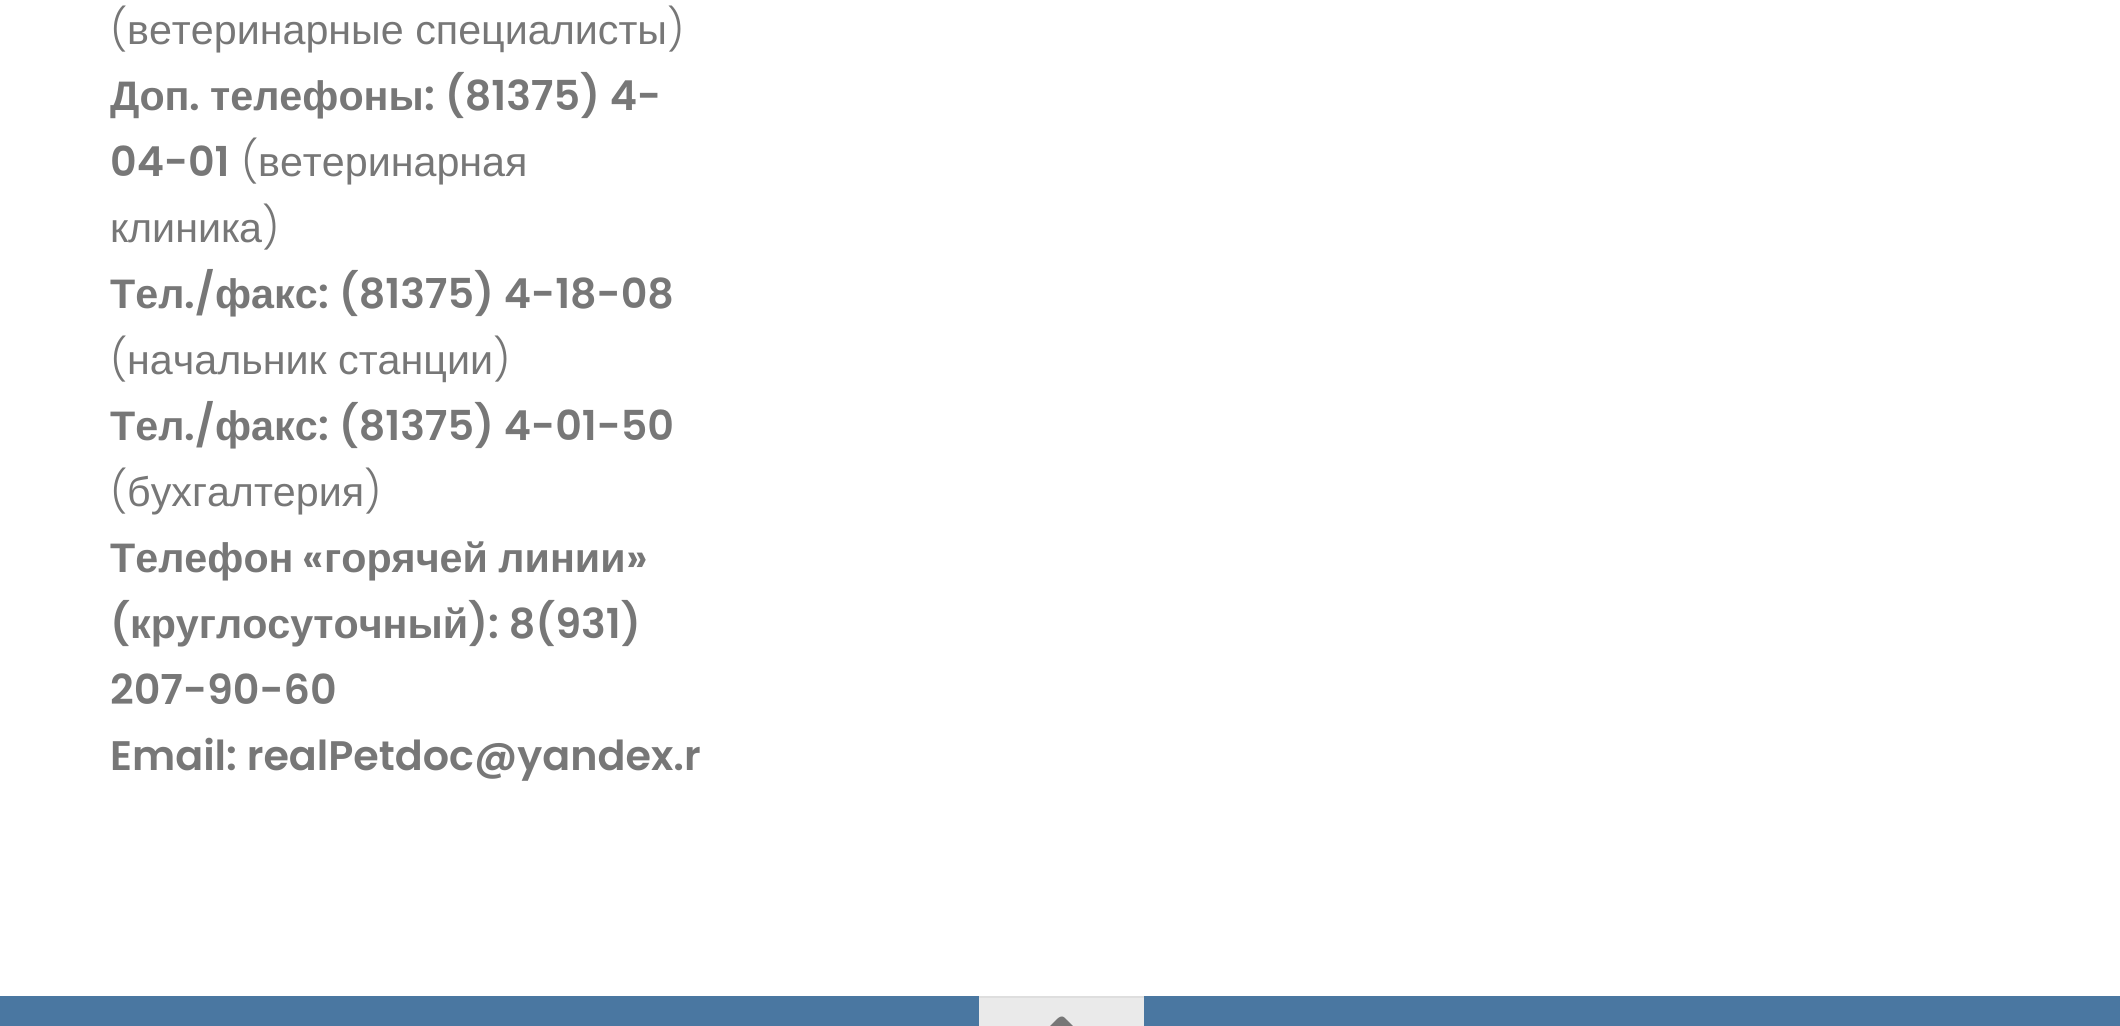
import math
import cairocffi as cairo

surface = cairo.ImageSurface(cairo.FORMAT_RGB24, 2120, 1026)
cr = cairo.Context(surface)
options = cairo.FontOptions()
options.set_hint_metrics(cairo.HINT_METRICS_OFF)
options.set_hint_style(cairo.HINT_STYLE_NONE)
cr.set_font_options(options)
cr.set_miter_limit(4)


def use_color(code):
    cr.set_source_rgb(*(v / 255 for v in bytes.fromhex(code[-6:])))


def spaced_text(x, y, s, letter, word):
    cr.move_to(x, y)
    for ch in s:
        cr.show_text(ch)
        cr.rel_move_to(letter + word * (ch == ' '), 0)


use_color("#ffffff")
cr.paint()
cr.select_font_face("Poppins Light")
cr.set_font_size(41.25)
use_color("#777777")
cr.move_to(110, 44)
cr.show_text("(")
cr.select_font_face("Liberation Sans")
cr.move_to(127, 44)
cr.show_text("ветеринарные специалисты")
cr.select_font_face("Poppins Light")
cr.move_to(667, 44)
cr.show_text(")")
cr.select_font_face("Liberation Sans", cairo.FONT_SLANT_NORMAL, cairo.FONT_WEIGHT_BOLD)
cr.move_to(110, 110)
cr.show_text("Доп")
cr.select_font_face("Poppins SemiBold")
cr.move_to(189, 110)
cr.show_text(".")
cr.select_font_face("Liberation Sans", cairo.FONT_SLANT_NORMAL, cairo.FONT_WEIGHT_BOLD)
cr.move_to(210, 110)
cr.show_text("телефоны")
cr.select_font_face("Poppins SemiBold")
cr.move_to(424, 110)
cr.show_text(": (81375) 4-")
cr.move_to(110, 176)
cr.show_text("04-01")
cr.select_font_face("Poppins Light")
cr.move_to(241, 176)
cr.show_text("(")
cr.select_font_face("Liberation Sans")
cr.move_to(258, 176)
cr.show_text("ветеринарная")
cr.move_to(110, 242)
cr.show_text("клиника")
cr.select_font_face("Poppins Light")
cr.move_to(262, 242)
cr.show_text(")")
cr.select_font_face("Liberation Sans", cairo.FONT_SLANT_NORMAL, cairo.FONT_WEIGHT_BOLD)
cr.move_to(110, 308)
cr.show_text("Тел")
cr.select_font_face("Poppins SemiBold")
cr.move_to(184, 308)
cr.show_text("./")
cr.select_font_face("Liberation Sans", cairo.FONT_SLANT_NORMAL, cairo.FONT_WEIGHT_BOLD)
cr.move_to(215, 308)
cr.show_text("факс")
cr.select_font_face("Poppins SemiBold")
cr.move_to(318, 308)
cr.show_text(": (81375) 4-18-08")
cr.select_font_face("Poppins Light")
cr.move_to(110, 374)
cr.show_text("(")
cr.select_font_face("Liberation Sans")
cr.move_to(127, 374)
cr.show_text("начальник станции")
cr.select_font_face("Poppins Light")
cr.move_to(493, 374)
cr.show_text(")")
cr.select_font_face("Liberation Sans", cairo.FONT_SLANT_NORMAL, cairo.FONT_WEIGHT_BOLD)
cr.move_to(110, 440)
cr.show_text("Тел")
cr.select_font_face("Poppins SemiBold")
cr.move_to(184, 440)
cr.show_text("./")
cr.select_font_face("Liberation Sans", cairo.FONT_SLANT_NORMAL, cairo.FONT_WEIGHT_BOLD)
cr.move_to(215, 440)
cr.show_text("факс")
cr.select_font_face("Poppins SemiBold")
cr.move_to(318, 440)
cr.show_text(": (81375) 4-01-50")
cr.select_font_face("Poppins Light")
cr.move_to(110, 506)
cr.show_text("(")
cr.select_font_face("Liberation Sans")
cr.move_to(127, 506)
cr.show_text("бухгалтерия")
cr.select_font_face("Poppins Light")
cr.move_to(364, 506)
cr.show_text(")")
cr.select_font_face("Liberation Sans", cairo.FONT_SLANT_NORMAL, cairo.FONT_WEIGHT_BOLD)
cr.move_to(110, 572)
cr.show_text("Телефон")
cr.select_font_face("Poppins SemiBold")
cr.move_to(302, 572)
cr.show_text("«")
cr.select_font_face("Liberation Sans", cairo.FONT_SLANT_NORMAL, cairo.FONT_WEIGHT_BOLD)
spaced_text(324, 572, "горячей линии", 0, -1)
cr.select_font_face("Poppins SemiBold")
cr.move_to(626, 572)
cr.show_text("»")
cr.move_to(110, 638)
cr.show_text("(")
cr.select_font_face("Liberation Sans", cairo.FONT_SLANT_NORMAL, cairo.FONT_WEIGHT_BOLD)
cr.move_to(130, 638)
cr.show_text("круглосуточный")
cr.select_font_face("Poppins SemiBold")
cr.move_to(468, 638)
cr.show_text("): 8(931)")
cr.move_to(110, 704)
cr.show_text("207-90-60")
cr.move_to(110, 770)
cr.show_text("Email: realPetdoc@yandex.r")
use_color("#4a77a1")
cr.rectangle(0, 996, 2120, 30)
cr.fill()
use_color("#eaeaea")
cr.rectangle(979, 998, 165, 28)
cr.fill()
use_color("#dedede")
cr.rectangle(979, 996, 165, 2)
cr.fill()
use_color("#777777")
cr.new_path()
cr.move_to(1065, 1018)
cr.line_to(1080, 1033)
cr.curve_to(1088, 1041, 1093, 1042, 1085, 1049)
cr.curve_to(1080, 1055, 1077, 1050, 1073, 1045)
cr.line_to(1062, 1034)
cr.line_to(1051, 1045)
cr.curve_to(1048, 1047, 1044, 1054, 1040, 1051)
cr.curve_to(1030, 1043, 1035, 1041, 1043, 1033)
cr.line_to(1055, 1021)
cr.curve_to(1057, 1019, 1061, 1014, 1065, 1018)
cr.close_path()
cr.fill()
surface.write_to_png("result.png")
